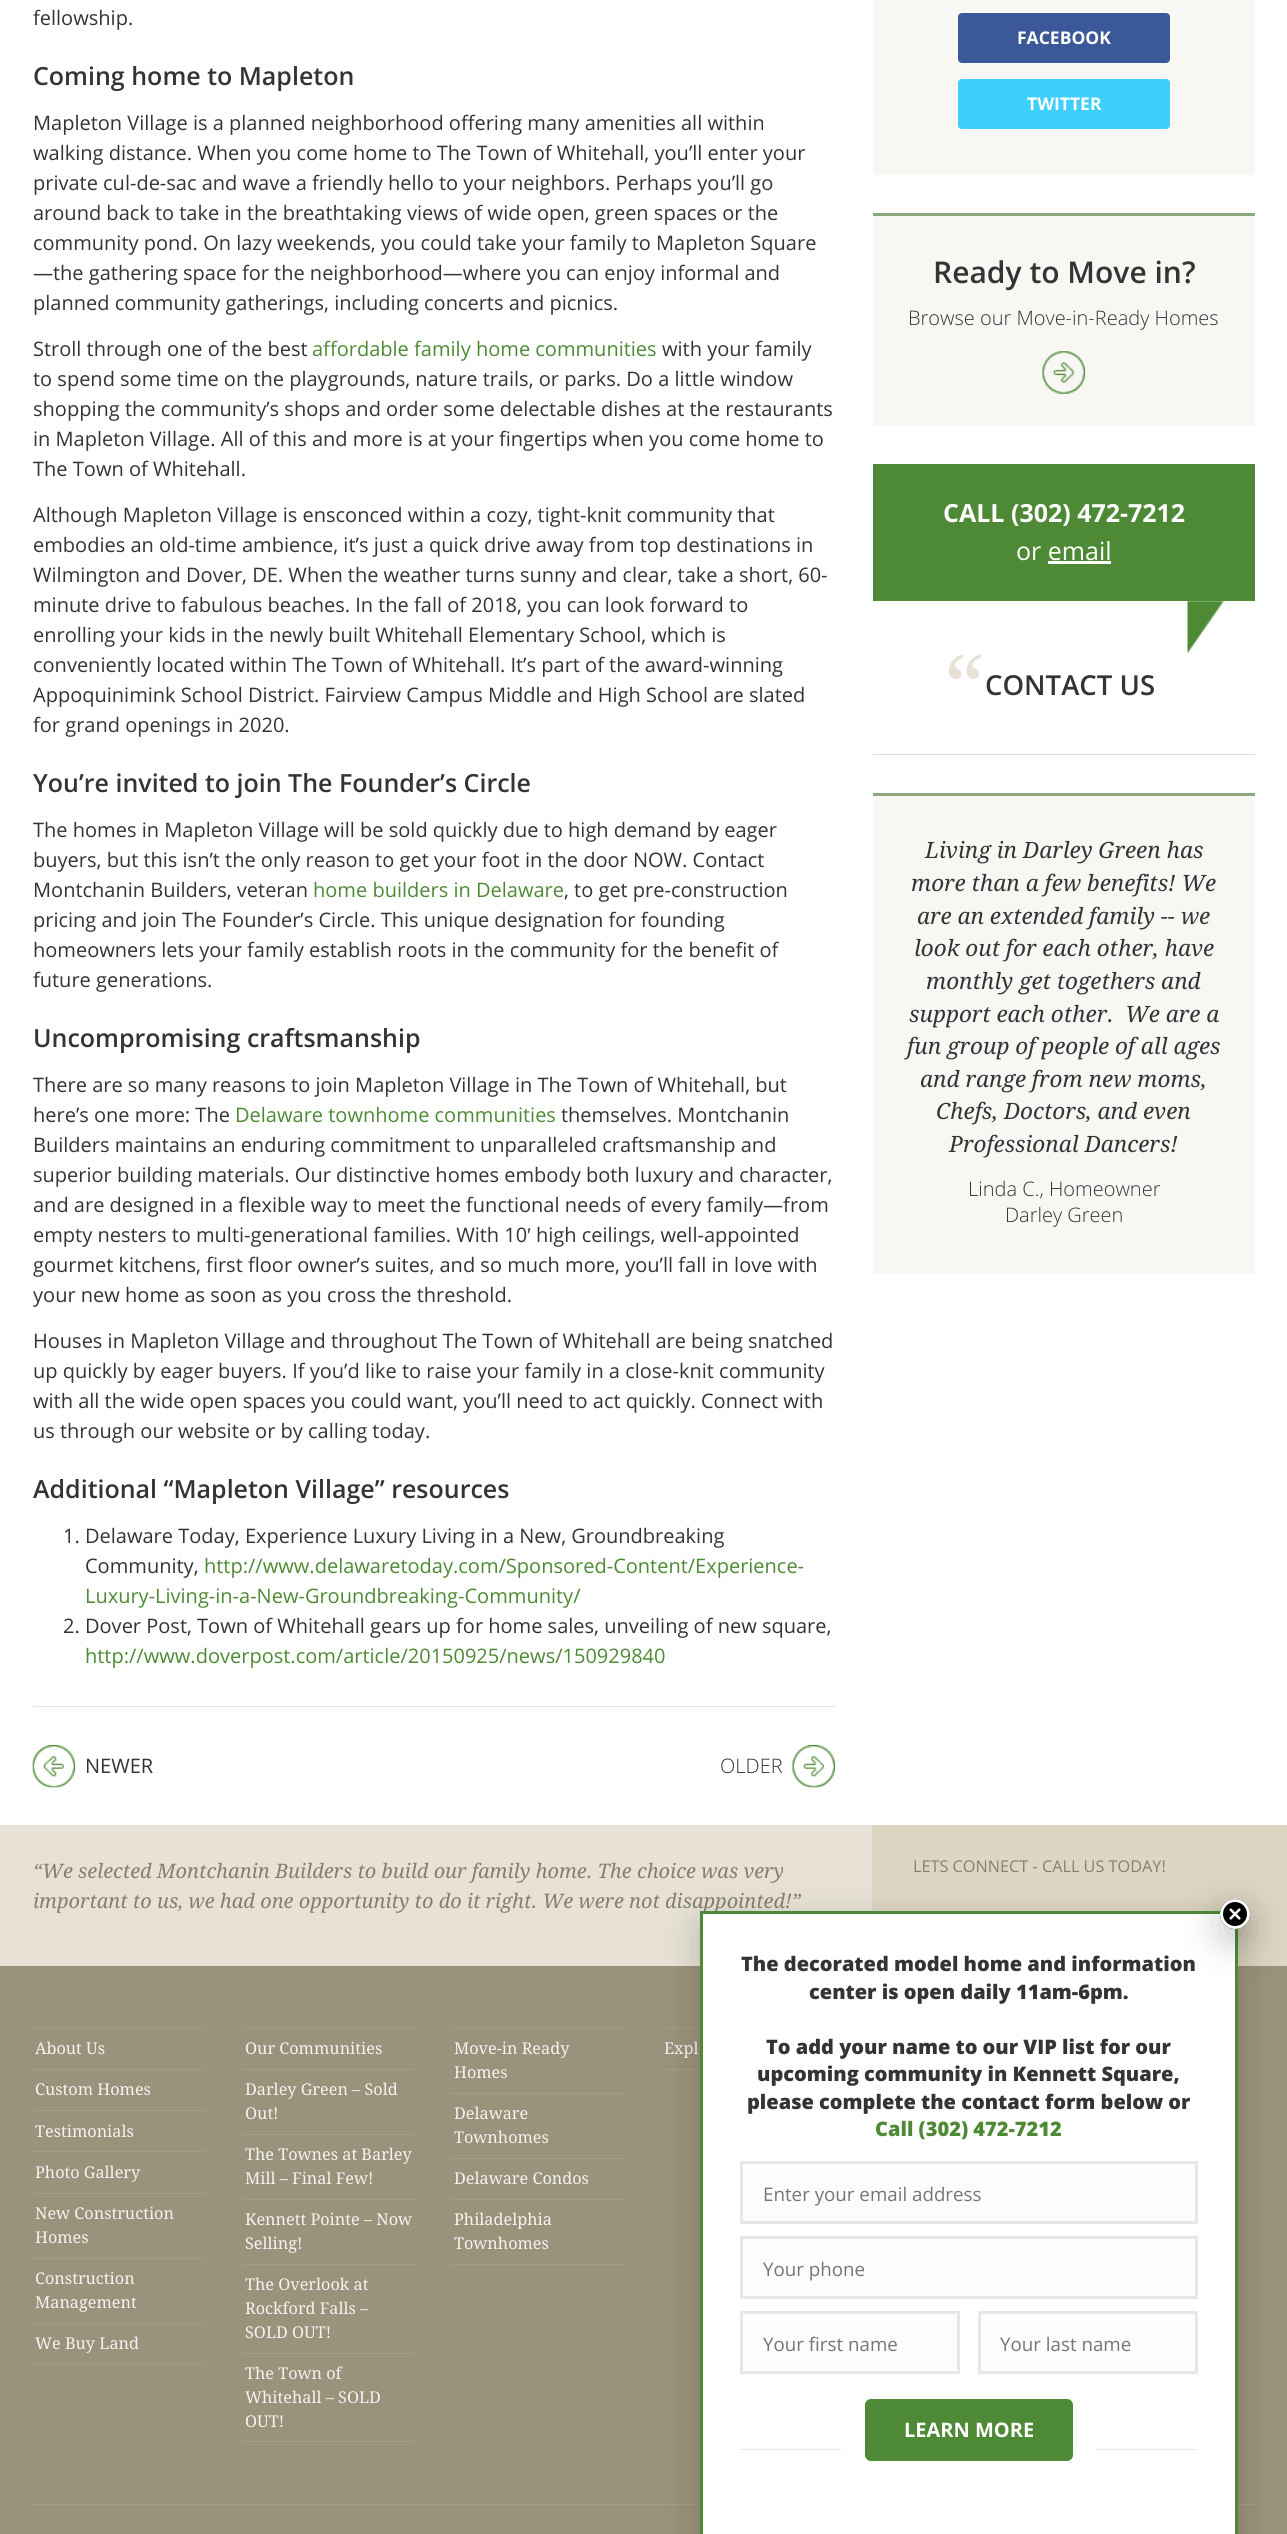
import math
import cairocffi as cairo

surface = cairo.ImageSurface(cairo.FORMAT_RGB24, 1287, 2534)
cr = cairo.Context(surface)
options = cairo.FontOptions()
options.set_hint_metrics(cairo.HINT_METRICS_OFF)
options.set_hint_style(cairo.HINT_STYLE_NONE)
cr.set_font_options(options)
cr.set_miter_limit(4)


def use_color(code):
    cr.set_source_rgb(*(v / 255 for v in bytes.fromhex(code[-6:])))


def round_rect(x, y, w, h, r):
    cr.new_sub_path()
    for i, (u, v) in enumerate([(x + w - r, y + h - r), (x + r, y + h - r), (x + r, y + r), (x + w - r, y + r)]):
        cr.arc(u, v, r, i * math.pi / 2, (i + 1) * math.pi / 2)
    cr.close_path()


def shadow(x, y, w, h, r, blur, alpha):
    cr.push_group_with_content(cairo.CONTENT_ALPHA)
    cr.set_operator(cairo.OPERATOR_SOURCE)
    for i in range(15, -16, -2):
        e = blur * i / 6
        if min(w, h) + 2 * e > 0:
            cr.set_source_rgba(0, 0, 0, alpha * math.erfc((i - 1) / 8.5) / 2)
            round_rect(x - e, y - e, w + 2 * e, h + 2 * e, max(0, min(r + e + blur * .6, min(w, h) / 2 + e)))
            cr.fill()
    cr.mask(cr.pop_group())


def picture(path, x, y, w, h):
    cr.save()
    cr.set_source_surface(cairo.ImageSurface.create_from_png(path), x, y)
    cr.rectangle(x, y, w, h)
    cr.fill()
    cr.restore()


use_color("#ffffff")
cr.paint()
use_color("#e6e6e6")
cr.rectangle(33, 1706, 802, 1)
cr.fill()
cr.select_font_face("Open Sans")
cr.set_font_size(20)
use_color("#343434")
cr.move_to(33, 25)
cr.show_text("fellowship.")
cr.select_font_face("Open Sans SemiBold")
cr.set_font_size(25)
cr.move_to(33, 85)
cr.show_text("Coming home to Mapleton")
cr.select_font_face("Open Sans")
cr.set_font_size(20)
cr.move_to(33, 130)
cr.show_text("Mapleton Village is a planned neighborhood offering many amenities all within")
cr.move_to(33, 160)
cr.show_text("walking distance. When you come home to The Town of Whitehall, you’ll enter your")
cr.move_to(33, 190)
cr.show_text("private cul-de-sac and wave a friendly hello to your neighbors. Perhaps you’ll go")
cr.move_to(33, 220)
cr.show_text("around back to take in the breathtaking views of wide open, green spaces or the")
cr.move_to(33, 250)
cr.show_text("community pond. On lazy weekends, you could take your family to Mapleton Square")
cr.move_to(33, 280)
cr.show_text("—the gathering space for the neighborhood—where you can enjoy informal and")
cr.move_to(33, 310)
cr.show_text("planned community gatherings, including concerts and picnics.")
cr.move_to(33, 356)
cr.show_text("Stroll through one of the best")
use_color("#4e8a35")
cr.move_to(312, 356)
cr.show_text("affordable family home communities")
use_color("#343434")
cr.move_to(662, 356)
cr.show_text("with your family")
cr.move_to(33, 386)
cr.show_text("to spend some time on the playgrounds, nature trails, or parks. Do a little window")
cr.move_to(33, 416)
cr.show_text("shopping the community’s shops and order some delectable dishes at the restaurants")
cr.move_to(33, 446)
cr.show_text("in Mapleton Village. All of this and more is at your fingertips when you come home to")
cr.move_to(33, 476)
cr.show_text("The Town of Whitehall.")
cr.move_to(33, 522)
cr.show_text("Although Mapleton Village is ensconced within a cozy, tight-knit community that")
cr.move_to(33, 552)
cr.show_text("embodies an old-time ambience, it’s just a quick drive away from top destinations in")
cr.move_to(33, 582)
cr.show_text("Wilmington and Dover, DE. When the weather turns sunny and clear, take a short, 60-")
cr.move_to(33, 612)
cr.show_text("minute drive to fabulous beaches. In the fall of 2018, you can look forward to")
cr.move_to(33, 642)
cr.show_text("enrolling your kids in the newly built Whitehall Elementary School, which is")
cr.move_to(33, 672)
cr.show_text("conveniently located within The Town of Whitehall. It’s part of the award-winning")
cr.move_to(33, 702)
cr.show_text("Appoquinimink School District. Fairview Campus Middle and High School are slated")
cr.move_to(33, 732)
cr.show_text("for grand openings in 2020.")
cr.select_font_face("Open Sans SemiBold")
cr.set_font_size(25)
cr.move_to(33, 792)
cr.show_text("You’re invited to join The Founder’s Circle")
cr.select_font_face("Open Sans")
cr.set_font_size(20)
cr.move_to(33, 837)
cr.show_text("The homes in Mapleton Village will be sold quickly due to high demand by eager")
cr.move_to(33, 867)
cr.show_text("buyers, but this isn’t the only reason to get your foot in the door NOW. Contact")
cr.move_to(33, 897)
cr.show_text("Montchanin Builders, veteran")
use_color("#4e8a35")
cr.move_to(313, 897)
cr.show_text("home builders in Delaware")
use_color("#343434")
cr.move_to(564, 897)
cr.show_text(", to get pre-construction")
cr.move_to(33, 927)
cr.show_text("pricing and join The Founder’s Circle. This unique designation for founding")
cr.move_to(33, 957)
cr.show_text("homeowners lets your family establish roots in the community for the benefit of")
cr.move_to(33, 987)
cr.show_text("future generations.")
cr.select_font_face("Open Sans SemiBold")
cr.set_font_size(25)
cr.move_to(33, 1047)
cr.show_text("Uncompromising craftsmanship")
cr.select_font_face("Open Sans")
cr.set_font_size(20)
cr.move_to(33, 1092)
cr.show_text("There are so many reasons to join Mapleton Village in The Town of Whitehall, but")
cr.move_to(33, 1122)
cr.show_text("here’s one more: The")
use_color("#4e8a35")
cr.move_to(235, 1122)
cr.show_text("Delaware townhome communities")
use_color("#343434")
cr.move_to(561, 1122)
cr.show_text("themselves. Montchanin")
cr.move_to(33, 1152)
cr.show_text("Builders maintains an enduring commitment to unparalleled craftsmanship and")
cr.move_to(33, 1182)
cr.show_text("superior building materials. Our distinctive homes embody both luxury and character,")
cr.move_to(33, 1212)
cr.show_text("and are designed in a flexible way to meet the functional needs of every family—from")
cr.move_to(33, 1242)
cr.show_text("empty nesters to multi-generational families. With 10")
cr.select_font_face("Liberation Sans")
cr.move_to(527, 1242)
cr.show_text("′")
cr.select_font_face("Open Sans")
cr.move_to(536, 1242)
cr.show_text("high ceilings, well-appointed")
cr.move_to(33, 1272)
cr.show_text("gourmet kitchens, first floor owner’s suites, and so much more, you’ll fall in love with")
cr.move_to(33, 1302)
cr.show_text("your new home as soon as you cross the threshold.")
cr.move_to(33, 1348)
cr.show_text("Houses in Mapleton Village and throughout The Town of Whitehall are being snatched")
cr.move_to(33, 1378)
cr.show_text("up quickly by eager buyers. If you’d like to raise your family in a close-knit community")
cr.move_to(33, 1408)
cr.show_text("with all the wide open spaces you could want, you’ll need to act quickly. Connect with")
cr.move_to(33, 1438)
cr.show_text("us through our website or by calling today.")
cr.select_font_face("Open Sans SemiBold")
cr.set_font_size(25)
cr.move_to(33, 1498)
cr.show_text("Additional “Mapleton Village” resources")
cr.select_font_face("Open Sans")
cr.set_font_size(20)
cr.move_to(63, 1543)
cr.show_text("1. Delaware Today, Experience Luxury Living in a New, Groundbreaking")
cr.move_to(85, 1573)
cr.show_text("Community,")
use_color("#4e8a35")
cr.move_to(204, 1573)
cr.show_text("http://www.delawaretoday.com/Sponsored-Content/Experience-")
cr.move_to(85, 1603)
cr.show_text("Luxury-Living-in-a-New-Groundbreaking-Community/")
use_color("#343434")
cr.move_to(63, 1633)
cr.show_text("2. Dover Post, Town of Whitehall gears up for home sales, unveiling of new square,")
use_color("#4e8a35")
cr.move_to(85, 1663)
cr.show_text("http://www.doverpost.com/article/20150925/news/150929840")
picture("img1.png", 32, 1745, 43, 43)
use_color("#343434")
cr.move_to(85, 1773)
cr.show_text("NEWER")
cr.select_font_face("Open Sans Light")
cr.move_to(720, 1773)
cr.show_text("OLDER")
picture("img2.png", 792, 1745, 43, 43)
use_color("#f8f7f3")
cr.rectangle(873, 0, 382, 175)
cr.fill()
use_color("#3b5998")
round_rect(958, 13, 212, 50, 4)
cr.fill()
cr.select_font_face("Open Sans", cairo.FONT_SLANT_NORMAL, cairo.FONT_WEIGHT_BOLD)
cr.set_font_size(17.5)
use_color("#ffffff")
cr.move_to(1017, 44)
cr.show_text("FACEBOOK")
use_color("#3fcfff")
round_rect(958, 79, 212, 50, 4)
cr.fill()
use_color("#ffffff")
cr.move_to(1027, 110)
cr.show_text("TWITTER")
use_color("#f8f7f3")
cr.rectangle(873, 216, 382, 210)
cr.fill()
use_color("#8ba87d")
cr.rectangle(873, 213, 382, 3)
cr.fill()
cr.select_font_face("Open Sans SemiBold")
cr.set_font_size(30)
use_color("#343434")
cr.move_to(933, 283)
cr.show_text("Ready to Move in?")
cr.select_font_face("Open Sans Light")
cr.set_font_size(20)
cr.move_to(908, 325)
cr.show_text("Browse our Move-in-Ready Homes")
picture("img3.png", 1042, 351, 43, 43)
use_color("#4e8a35")
cr.rectangle(873, 464, 382, 137)
cr.fill()
cr.select_font_face("Open Sans", cairo.FONT_SLANT_NORMAL, cairo.FONT_WEIGHT_BOLD)
cr.set_font_size(25)
use_color("#ffffff")
cr.move_to(943, 522)
cr.show_text("CALL (302) 472-7212")
cr.select_font_face("Open Sans")
cr.move_to(1016, 560)
cr.show_text("or email")
cr.rectangle(1048, 561, 63, 3)
cr.fill()
picture("img4.png", 1187, 601, 37, 53)
use_color("#dcdbd7")
cr.rectangle(873, 754, 382, 1)
cr.fill()
cr.select_font_face("Droid Serif")
cr.set_font_size(88)
use_color("#e7e2d5")
cr.move_to(944, 717)
cr.show_text("“")
cr.select_font_face("Open Sans SemiBold")
cr.set_font_size(27.5)
use_color("#343434")
cr.move_to(985, 695)
cr.show_text("CONTACT US")
use_color("#f8f7f3")
cr.rectangle(873, 796, 382, 478)
cr.fill()
use_color("#8ba87d")
cr.rectangle(873, 793, 382, 3)
cr.fill()
cr.select_font_face("Droid Serif", cairo.FONT_SLANT_ITALIC)
cr.set_font_size(22.5)
use_color("#343434")
cr.move_to(925, 858)
cr.show_text("Living in Darley Green has")
cr.move_to(911, 891)
cr.show_text("more than a few benefits! We")
cr.move_to(917, 924)
cr.show_text("are an extended family -- we")
cr.move_to(914, 956)
cr.show_text("look out for each other, have")
cr.move_to(926, 989)
cr.show_text("monthly get togethers and")
cr.move_to(909, 1022)
cr.show_text("support each other.  We are a")
cr.move_to(907, 1054)
cr.show_text("fun group of people of all ages")
cr.move_to(920, 1087)
cr.show_text("and range from new moms,")
cr.move_to(936, 1119)
cr.show_text("Chefs, Doctors, and even")
cr.move_to(949, 1152)
cr.show_text("Professional Dancers!")
cr.select_font_face("Open Sans Light")
cr.set_font_size(20)
cr.move_to(968, 1196)
cr.show_text("Linda C., Homeowner")
cr.move_to(1005, 1222)
cr.show_text("Darley Green")
use_color("#e7e2d5")
cr.rectangle(0, 1825, 872, 141)
cr.fill()
use_color("#ddd6c3")
cr.rectangle(872, 1825, 415, 141)
cr.fill()
cr.select_font_face("Droid Serif", cairo.FONT_SLANT_ITALIC)
use_color("#857f6b")
cr.move_to(33, 1878)
cr.show_text("“We selected Montchanin Builders to build our family home. The choice was very")
cr.move_to(33, 1908)
cr.show_text("important to us, we had one opportunity to do it right. We were not disappointed!”")
cr.select_font_face("Open Sans")
cr.set_font_size(16.25)
cr.move_to(913, 1872)
cr.show_text("LETS CONNECT - CALL US TODAY!")
use_color("#9b927b")
cr.rectangle(0, 1966, 1287, 568)
cr.fill()
use_color("#a59d88")
cr.rectangle(33, 2028, 172, 1)
cr.fill()
cr.rectangle(33, 2069, 172, 1)
cr.fill()
cr.select_font_face("Droid Serif")
use_color("#f4f3f1")
cr.move_to(35, 2054)
cr.show_text("About Us")
use_color("#a59d88")
cr.rectangle(33, 2110, 172, 1)
cr.fill()
use_color("#f4f3f1")
cr.move_to(35, 2095)
cr.show_text("Custom Homes")
use_color("#a59d88")
cr.rectangle(33, 2151, 172, 1)
cr.fill()
use_color("#f4f3f1")
cr.move_to(35, 2137)
cr.show_text("Testimonials")
use_color("#a59d88")
cr.rectangle(33, 2193, 172, 1)
cr.fill()
use_color("#f4f3f1")
cr.move_to(35, 2178)
cr.show_text("Photo Gallery")
use_color("#a59d88")
cr.rectangle(33, 2258, 172, 1)
cr.fill()
use_color("#f4f3f1")
cr.move_to(35, 2219)
cr.show_text("New Construction")
cr.move_to(35, 2243)
cr.show_text("Homes")
use_color("#a59d88")
cr.rectangle(33, 2323, 172, 1)
cr.fill()
use_color("#f4f3f1")
cr.move_to(35, 2284)
cr.show_text("Construction")
cr.move_to(35, 2308)
cr.show_text("Management")
use_color("#a59d88")
cr.rectangle(33, 2364, 172, 1)
cr.fill()
use_color("#f4f3f1")
cr.move_to(35, 2349)
cr.show_text("We Buy Land")
use_color("#a59d88")
cr.rectangle(243, 2028, 171, 1)
cr.fill()
cr.rectangle(243, 2069, 171, 1)
cr.fill()
use_color("#f4f3f1")
cr.move_to(245, 2054)
cr.show_text("Our Communities")
use_color("#a59d88")
cr.rectangle(243, 2134, 171, 1)
cr.fill()
use_color("#f4f3f1")
cr.move_to(245, 2095)
cr.show_text("Darley Green – Sold")
cr.move_to(245, 2119)
cr.show_text("Out!")
use_color("#a59d88")
cr.rectangle(243, 2199, 171, 1)
cr.fill()
use_color("#f4f3f1")
cr.move_to(245, 2160)
cr.show_text("The Townes at Barley")
cr.move_to(245, 2184)
cr.show_text("Mill – Final Few!")
use_color("#a59d88")
cr.rectangle(243, 2264, 171, 1)
cr.fill()
use_color("#f4f3f1")
cr.move_to(245, 2225)
cr.show_text("Kennett Pointe – Now")
cr.move_to(245, 2249)
cr.show_text("Selling!")
use_color("#a59d88")
cr.rectangle(243, 2353, 171, 1)
cr.fill()
use_color("#f4f3f1")
cr.move_to(245, 2290)
cr.show_text("The Overlook at")
cr.move_to(245, 2314)
cr.show_text("Rockford Falls –")
cr.move_to(245, 2338)
cr.show_text("SOLD OUT!")
use_color("#a59d88")
cr.rectangle(243, 2441, 171, 1)
cr.fill()
use_color("#f4f3f1")
cr.move_to(245, 2379)
cr.show_text("The Town of")
cr.move_to(245, 2403)
cr.show_text("Whitehall – SOLD")
cr.move_to(245, 2427)
cr.show_text("OUT!")
use_color("#a59d88")
cr.rectangle(451, 2028, 173, 1)
cr.fill()
cr.rectangle(451, 2093, 173, 1)
cr.fill()
use_color("#f4f3f1")
cr.move_to(454, 2054)
cr.show_text("Move-in Ready")
cr.move_to(454, 2078)
cr.show_text("Homes")
use_color("#a59d88")
cr.rectangle(451, 2158, 173, 1)
cr.fill()
use_color("#f4f3f1")
cr.move_to(454, 2119)
cr.show_text("Delaware")
cr.move_to(454, 2143)
cr.show_text("Townhomes")
use_color("#a59d88")
cr.rectangle(451, 2199, 173, 1)
cr.fill()
use_color("#f4f3f1")
cr.move_to(454, 2184)
cr.show_text("Delaware Condos")
use_color("#a59d88")
cr.rectangle(451, 2264, 173, 1)
cr.fill()
use_color("#f4f3f1")
cr.move_to(454, 2225)
cr.show_text("Philadelphia")
cr.move_to(454, 2249)
cr.show_text("Townhomes")
use_color("#a59d88")
cr.rectangle(661, 2028, 39, 1)
cr.fill()
cr.rectangle(661, 2069, 39, 1)
cr.fill()
use_color("#f4f3f1")
cr.move_to(664, 2054)
cr.show_text("Expl")
use_color("#a59d88")
cr.rectangle(33, 2504, 1222, 1)
cr.fill()
use_color("#000000")
shadow(700, 1924, 538, 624, 0, 19, 0.2)
use_color("#ffffff")
cr.rectangle(703, 1914, 532, 620)
cr.fill()
use_color("#4e8a35")
cr.rectangle(700, 1911, 521, 3)
cr.fill()
cr.rectangle(1235, 1928, 3, 606)
cr.fill()
cr.rectangle(700, 1911, 3, 623)
cr.fill()
use_color("#000000")
shadow(1220, 1911, 30, 30, 15, 19, 0.2)
use_color("#000000")
cr.arc(1235, 1914, 15, 0, 2 * math.pi)
cr.fill()
cr.new_path()
cr.move_to(1240, 1909)
cr.line_to(1230, 1919)
cr.move_to(1230, 1909)
cr.line_to(1240, 1919)
use_color("#ffffff")
cr.set_line_width(2.5)
cr.stroke()
cr.arc(1235, 1914, 13.5, 0, 2 * math.pi)
cr.set_line_width(3)
cr.stroke()
cr.select_font_face("Open Sans ExtraBold")
cr.set_font_size(20)
use_color("#343434")
cr.move_to(741, 1971)
cr.show_text("The decorated model home and information")
cr.move_to(809, 1999)
cr.show_text("center is open daily 11am-6pm.")
cr.move_to(766, 2054)
cr.show_text("To add your name to our VIP list for our")
cr.move_to(757, 2081)
cr.show_text("upcoming community in Kennett Square,")
cr.move_to(747, 2109)
cr.show_text("please complete the contact form below or")
use_color("#4e8a35")
cr.move_to(875, 2136)
cr.show_text("Call (302) 472-7212")
use_color("#fcfcfc")
cr.rectangle(741.5, 2162.5, 455, 60)
cr.fill_preserve()
use_color("#e7e7e4")
cr.stroke()
cr.select_font_face("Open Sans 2")
cr.set_font_size(18.75)
use_color("#757575")
cr.move_to(763, 2201)
cr.show_text("Enter your email address")
use_color("#fcfcfc")
cr.rectangle(741.5, 2237.5, 455, 60)
cr.fill_preserve()
use_color("#e7e7e4")
cr.stroke()
use_color("#757575")
cr.move_to(763, 2276)
cr.show_text("Your phone")
use_color("#fcfcfc")
cr.rectangle(741.5, 2312.5, 217, 60)
cr.fill_preserve()
use_color("#e7e7e4")
cr.stroke()
use_color("#757575")
cr.move_to(763, 2351)
cr.show_text("Your first name")
use_color("#fcfcfc")
cr.rectangle(979.5, 2312.5, 217, 60)
cr.fill_preserve()
use_color("#e7e7e4")
cr.stroke()
use_color("#757575")
cr.move_to(1000, 2351)
cr.show_text("Your last name")
use_color("#4e8a35")
round_rect(865, 2399, 208, 62, 6)
cr.fill()
cr.select_font_face("Open Sans 2", cairo.FONT_SLANT_NORMAL, cairo.FONT_WEIGHT_BOLD)
cr.set_font_size(20)
use_color("#ffffff")
cr.move_to(904, 2437)
cr.show_text("LEARN MORE")
use_color("#e7e7e4")
cr.rectangle(740, 2449, 101, 1)
cr.fill()
cr.rectangle(1096, 2449, 102, 1)
cr.fill()
surface.write_to_png("result.png")
